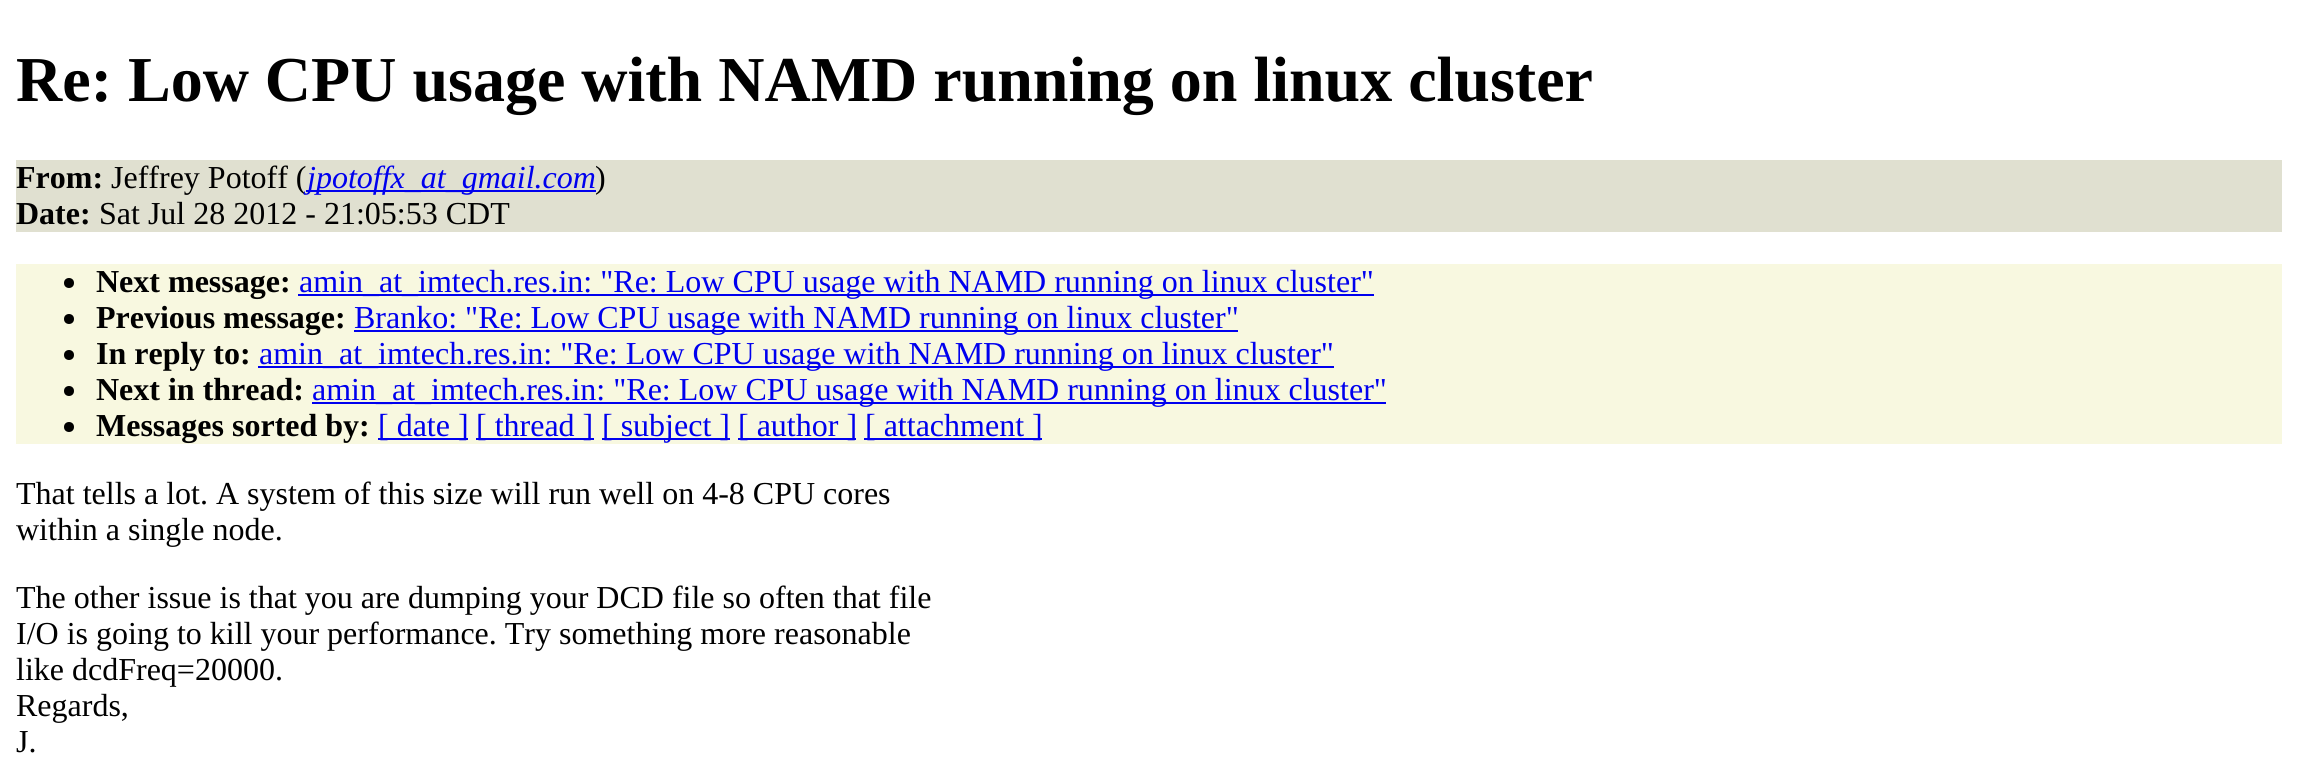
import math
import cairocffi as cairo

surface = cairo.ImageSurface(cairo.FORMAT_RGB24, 2298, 772)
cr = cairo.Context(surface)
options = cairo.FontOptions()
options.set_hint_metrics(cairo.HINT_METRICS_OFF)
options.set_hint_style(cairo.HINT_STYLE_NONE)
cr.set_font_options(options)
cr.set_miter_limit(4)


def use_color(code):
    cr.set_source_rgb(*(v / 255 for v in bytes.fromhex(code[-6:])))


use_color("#ffffff")
cr.paint()
cr.select_font_face("Liberation Serif", cairo.FONT_SLANT_NORMAL, cairo.FONT_WEIGHT_BOLD)
cr.set_font_size(64)
use_color("#000000")
cr.move_to(16, 101)
cr.show_text("Re: Low CPU usage with NAMD running on linux cluster")
use_color("#e0e0d0")
cr.rectangle(16, 160, 2266, 72)
cr.fill()
cr.set_font_size(32)
use_color("#000000")
cr.move_to(16, 188)
cr.show_text("From:")
cr.select_font_face("Liberation Serif")
cr.move_to(111, 188)
cr.show_text("Jeffrey Potoff (")
use_color("#0000ee")
cr.rectangle(306, 190, 290, 2)
cr.fill()
cr.select_font_face("Liberation Serif", cairo.FONT_SLANT_ITALIC)
cr.move_to(307, 188)
cr.show_text("jpotoffx_at_gmail.com")
cr.select_font_face("Liberation Serif")
use_color("#000000")
cr.move_to(595, 188)
cr.show_text(")")
cr.select_font_face("Liberation Serif", cairo.FONT_SLANT_NORMAL, cairo.FONT_WEIGHT_BOLD)
cr.move_to(16, 224)
cr.show_text("Date:")
cr.select_font_face("Liberation Serif")
cr.move_to(99, 224)
cr.show_text("Sat Jul 28 2012 - 21:05:53 CDT")
use_color("#f8f8e0")
cr.rectangle(16, 264, 2266, 180)
cr.fill()
use_color("#000000")
cr.arc(69, 283, 5, 0, 2 * math.pi)
cr.fill()
cr.select_font_face("Liberation Serif", cairo.FONT_SLANT_NORMAL, cairo.FONT_WEIGHT_BOLD)
cr.move_to(96, 292)
cr.show_text("Next message:")
use_color("#0000ee")
cr.rectangle(298, 294, 1076, 2)
cr.fill()
cr.select_font_face("Liberation Serif")
cr.move_to(299, 292)
cr.show_text("amin_at_imtech.res.in: \"Re: Low CPU usage with NAMD running on linux cluster\"")
use_color("#000000")
cr.new_path()
cr.arc(69, 319, 5, 0, 2 * math.pi)
cr.fill()
cr.select_font_face("Liberation Serif", cairo.FONT_SLANT_NORMAL, cairo.FONT_WEIGHT_BOLD)
cr.move_to(96, 328)
cr.show_text("Previous message:")
use_color("#0000ee")
cr.rectangle(354, 330, 884, 2)
cr.fill()
cr.select_font_face("Liberation Serif")
cr.move_to(354, 328)
cr.show_text("Branko: \"Re: Low CPU usage with NAMD running on linux cluster\"")
use_color("#000000")
cr.new_path()
cr.arc(69, 355, 5, 0, 2 * math.pi)
cr.fill()
cr.select_font_face("Liberation Serif", cairo.FONT_SLANT_NORMAL, cairo.FONT_WEIGHT_BOLD)
cr.move_to(96, 364)
cr.show_text("In reply to:")
use_color("#0000ee")
cr.rectangle(258, 366, 1076, 2)
cr.fill()
cr.select_font_face("Liberation Serif")
cr.move_to(259, 364)
cr.show_text("amin_at_imtech.res.in: \"Re: Low CPU usage with NAMD running on linux cluster\"")
use_color("#000000")
cr.new_path()
cr.arc(69, 391, 5, 0, 2 * math.pi)
cr.fill()
cr.select_font_face("Liberation Serif", cairo.FONT_SLANT_NORMAL, cairo.FONT_WEIGHT_BOLD)
cr.move_to(96, 400)
cr.show_text("Next in thread:")
use_color("#0000ee")
cr.rectangle(312, 402, 1074, 2)
cr.fill()
cr.select_font_face("Liberation Serif")
cr.move_to(312, 400)
cr.show_text("amin_at_imtech.res.in: \"Re: Low CPU usage with NAMD running on linux cluster\"")
use_color("#000000")
cr.new_path()
cr.arc(69, 427, 5, 0, 2 * math.pi)
cr.fill()
cr.select_font_face("Liberation Serif", cairo.FONT_SLANT_NORMAL, cairo.FONT_WEIGHT_BOLD)
cr.move_to(96, 436)
cr.show_text("Messages sorted by:")
use_color("#0000ee")
cr.rectangle(378, 438, 90, 2)
cr.fill()
cr.select_font_face("Liberation Serif")
cr.move_to(378, 436)
cr.show_text("[ date ]")
cr.rectangle(476, 438, 118, 2)
cr.fill()
cr.move_to(476, 436)
cr.show_text("[ thread ]")
cr.rectangle(602, 438, 128, 2)
cr.fill()
cr.move_to(602, 436)
cr.show_text("[ subject ]")
cr.rectangle(738, 438, 118, 2)
cr.fill()
cr.move_to(738, 436)
cr.show_text("[ author ]")
cr.rectangle(864, 438, 178, 2)
cr.fill()
cr.move_to(865, 436)
cr.show_text("[ attachment ]")
use_color("#000000")
cr.move_to(16, 504)
cr.show_text("That tells a lot. A system of this size will run well on 4-8 CPU cores")
cr.move_to(16, 540)
cr.show_text("within a single node.")
cr.move_to(16, 608)
cr.show_text("The other issue is that you are dumping your DCD file so often that file")
cr.move_to(16, 644)
cr.show_text("I/O is going to kill your performance. Try something more reasonable")
cr.move_to(16, 680)
cr.show_text("like dcdFreq=20000.")
cr.move_to(16, 716)
cr.show_text("Regards,")
cr.move_to(16, 752)
cr.show_text("J.")
surface.write_to_png("result.png")
